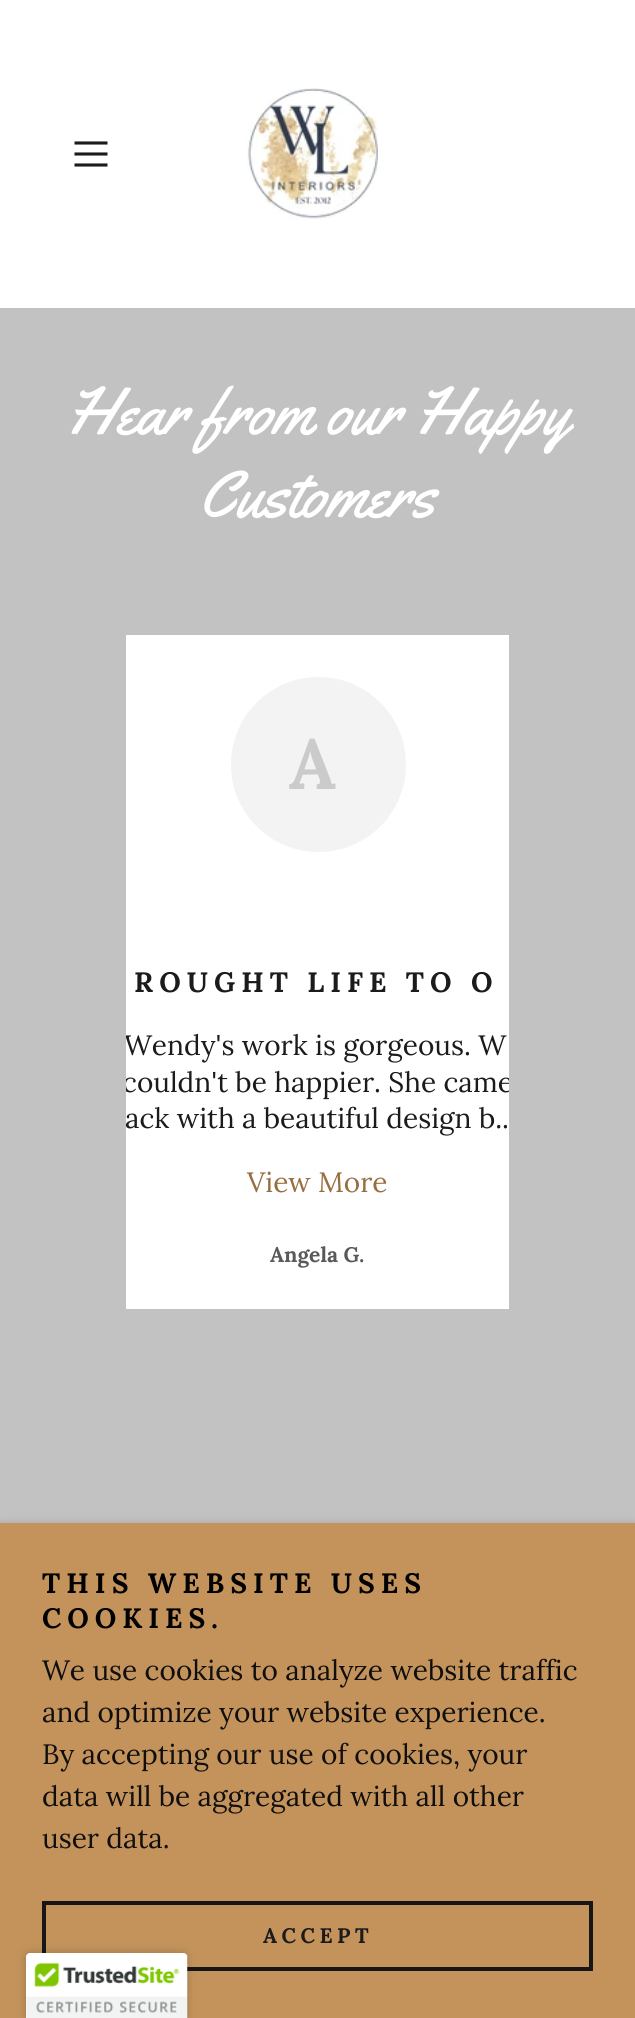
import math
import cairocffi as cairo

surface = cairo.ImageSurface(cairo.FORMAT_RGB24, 635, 2018)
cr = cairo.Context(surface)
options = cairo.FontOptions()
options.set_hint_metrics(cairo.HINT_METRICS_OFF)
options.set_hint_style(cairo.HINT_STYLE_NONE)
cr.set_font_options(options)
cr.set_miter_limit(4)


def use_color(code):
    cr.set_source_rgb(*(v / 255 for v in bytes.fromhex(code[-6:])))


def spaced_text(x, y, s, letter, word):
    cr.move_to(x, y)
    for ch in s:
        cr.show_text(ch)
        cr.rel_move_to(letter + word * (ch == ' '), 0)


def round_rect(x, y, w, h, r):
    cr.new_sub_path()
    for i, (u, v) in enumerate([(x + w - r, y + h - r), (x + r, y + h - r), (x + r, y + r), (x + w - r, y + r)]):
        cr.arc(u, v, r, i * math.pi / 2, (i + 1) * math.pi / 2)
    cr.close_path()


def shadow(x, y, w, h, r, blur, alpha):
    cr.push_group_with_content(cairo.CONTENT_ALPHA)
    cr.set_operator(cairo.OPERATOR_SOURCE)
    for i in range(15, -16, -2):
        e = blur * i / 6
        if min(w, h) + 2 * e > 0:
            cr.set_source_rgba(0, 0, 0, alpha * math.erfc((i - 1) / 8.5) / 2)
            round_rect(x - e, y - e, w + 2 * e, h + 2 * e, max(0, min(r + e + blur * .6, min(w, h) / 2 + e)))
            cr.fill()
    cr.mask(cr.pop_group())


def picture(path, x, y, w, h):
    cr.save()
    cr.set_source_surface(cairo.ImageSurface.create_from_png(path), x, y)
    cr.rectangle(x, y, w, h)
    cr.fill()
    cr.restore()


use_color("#ffffff")
cr.paint()
cr.new_path()
cr.move_to(74.5, 143)
cr.line_to(107.5, 143)
cr.close_path()
cr.move_to(74.5, 154)
cr.line_to(107.5, 154)
cr.close_path()
cr.move_to(74.5, 165)
cr.line_to(107.5, 165)
cr.close_path()
use_color("#1b1b1b")
cr.set_line_width(3.1)
cr.set_line_cap(cairo.LINE_CAP_SQUARE)
cr.stroke()
picture("img1.png", 247, 88, 131, 131)
use_color("#c2c2c2")
cr.rectangle(0, 308, 635, 1215)
cr.fill()
cr.select_font_face("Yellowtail")
cr.set_font_size(66.5)
use_color("#ffffff")
cr.move_to(66, 434)
cr.show_text("Hear from our Happy")
cr.move_to(199, 517)
cr.show_text("Customers")
cr.rectangle(126, 635, 383, 674)
cr.fill()
use_color("#f3f3f3")
cr.arc(318.5, 764.5, 87.5, 0, 2 * math.pi)
cr.fill()
cr.select_font_face("Lora", cairo.FONT_SLANT_NORMAL, cairo.FONT_WEIGHT_BOLD)
cr.set_font_size(70)
use_color("#cbcbcb")
spaced_text(289, 789, "A", 15, 0)
cr.set_font_size(28)
use_color("#1b1b1b")
spaced_text(134, 992, "ROUGHT LIFE TO O", 6, 0)
cr.save()
cr.rectangle(126, 635, 383, 674)
cr.clip()
cr.select_font_face("Lora")
cr.move_to(124, 1055)
cr.show_text("Wendy's work is gorgeous. W")
cr.move_to(122, 1092)
cr.show_text("couldn't be happier. She came")
cr.restore()
cr.select_font_face("Lora")
cr.move_to(125, 1128)
cr.show_text("ack with a beautiful design b..")
use_color("#966e3f")
cr.move_to(247, 1192)
cr.show_text("View More")
cr.select_font_face("Lora", cairo.FONT_SLANT_NORMAL, cairo.FONT_WEIGHT_BOLD)
cr.set_font_size(21)
use_color("#595959")
cr.move_to(270, 1262)
cr.show_text("Angela G.")
use_color("#000000")
shadow(0, 1526, 635, 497, 0, 5, 0.3)
use_color("#c3935b")
cr.rectangle(0, 1523, 635, 495)
cr.fill()
cr.set_font_size(28)
use_color("#000000")
spaced_text(42, 1593, "THIS WEBSITE USES", 6, 0)
spaced_text(42, 1628, "COOKIES.", 6, 0)
cr.select_font_face("Lora")
use_color("#100f0e")
cr.move_to(42, 1680)
cr.show_text("We use cookies to analyze website traffic")
cr.move_to(42, 1722)
cr.show_text("and optimize your website experience.")
cr.move_to(42, 1764)
cr.show_text("By accepting our use of cookies, your")
cr.move_to(42, 1806)
cr.show_text("data will be aggregated with all other")
cr.move_to(42, 1848)
cr.show_text("user data.")
cr.rectangle(44, 1903, 547, 66)
use_color("#161616")
cr.set_line_width(4)
cr.set_line_cap(cairo.LINE_CAP_BUTT)
cr.stroke()
cr.select_font_face("Lora", cairo.FONT_SLANT_NORMAL, cairo.FONT_WEIGHT_BOLD)
cr.set_font_size(21)
use_color("#1b1b1b")
spaced_text(263, 1943, "ACCEPT", 4.5, 0)
use_color("#000000")
shadow(26, 1953, 161, 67, 4, 4.5, 0.2)
use_color("#ffffff")
cr.new_path()
cr.move_to(30, 1953)
cr.line_to(183, 1953)
cr.curve_to(185, 1953, 187, 1955, 187, 1957)
cr.line_to(187, 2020)
cr.line_to(26, 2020)
cr.line_to(26, 1957)
cr.curve_to(26, 1955, 28, 1953, 30, 1953)
cr.close_path()
cr.fill()
picture("img2.png", 26, 1953, 162, 65)
surface.write_to_png("result.png")
